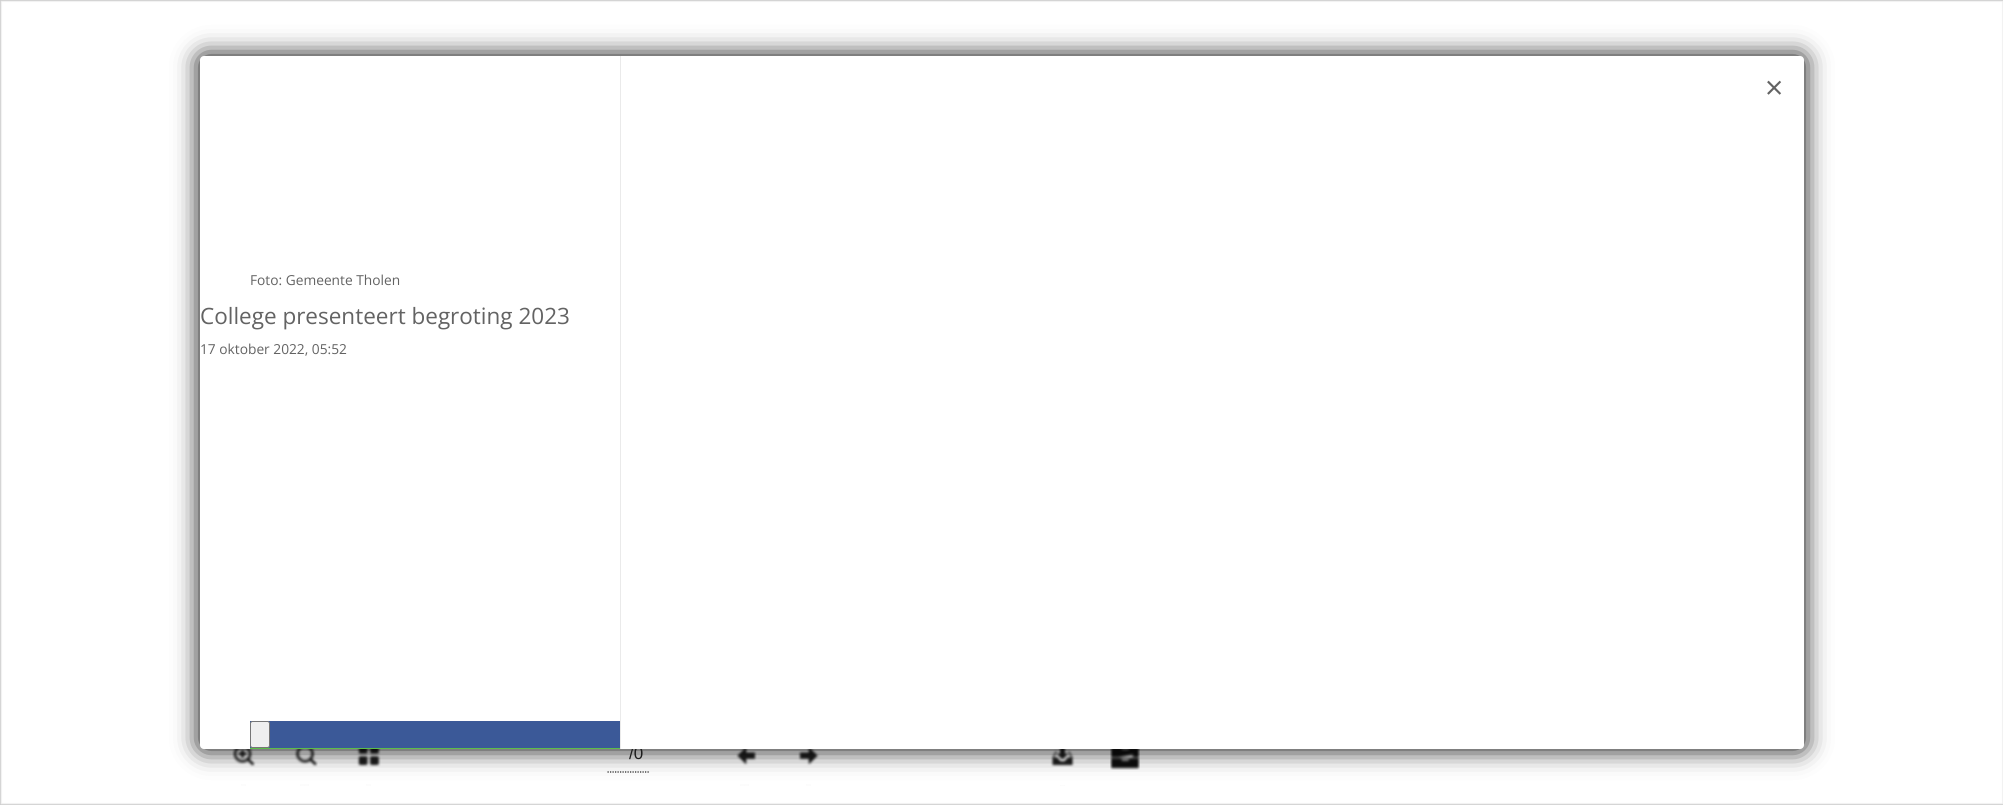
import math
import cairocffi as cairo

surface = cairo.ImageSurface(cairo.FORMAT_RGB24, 2003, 805)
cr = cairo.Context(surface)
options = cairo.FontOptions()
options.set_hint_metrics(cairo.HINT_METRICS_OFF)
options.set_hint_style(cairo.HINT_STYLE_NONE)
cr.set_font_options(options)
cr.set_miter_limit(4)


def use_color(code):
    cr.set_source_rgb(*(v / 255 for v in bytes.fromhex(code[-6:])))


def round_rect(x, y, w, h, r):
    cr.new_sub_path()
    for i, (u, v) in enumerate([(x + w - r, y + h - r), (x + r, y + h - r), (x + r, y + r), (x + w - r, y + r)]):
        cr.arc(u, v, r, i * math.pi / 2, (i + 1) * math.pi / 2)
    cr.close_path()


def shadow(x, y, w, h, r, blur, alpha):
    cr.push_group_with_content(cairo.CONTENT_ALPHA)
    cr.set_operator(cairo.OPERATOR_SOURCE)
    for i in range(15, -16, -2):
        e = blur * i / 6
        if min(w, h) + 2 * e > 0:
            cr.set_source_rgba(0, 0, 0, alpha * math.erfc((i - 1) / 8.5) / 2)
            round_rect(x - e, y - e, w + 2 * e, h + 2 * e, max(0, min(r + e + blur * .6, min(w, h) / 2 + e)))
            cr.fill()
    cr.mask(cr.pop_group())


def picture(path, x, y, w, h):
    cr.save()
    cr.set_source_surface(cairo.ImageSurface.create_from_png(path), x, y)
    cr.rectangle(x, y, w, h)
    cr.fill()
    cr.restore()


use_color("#ffffff")
cr.paint()
use_color("#323232")
shadow(0, 0, 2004, 805, 0, 1, 1)
use_color("#ffffff")
shadow(0, 0, 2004, 805, 0, 1, 1)
picture("img1.png", 232, 749, 24, 18)
picture("img2.png", 241, 784, 5, 2)
picture("img3.png", 294, 749, 24, 18)
picture("img4.png", 300, 784, 9, 2)
picture("img5.png", 356, 749, 25, 18)
picture("img2.png", 366, 784, 5, 2)
cr.new_path()
cr.move_to(607.5, 772)
cr.line_to(650, 772)
use_color("#1d1d1d")
cr.set_line_width(1.2)
cr.set_dash([1.25, 1.25])
cr.stroke()
picture("img6.png", 736, 749, 21, 17)
picture("img4.png", 740, 784, 9, 2)
picture("img7.png", 798, 749, 22, 17)
picture("img2.png", 806, 784, 5, 2)
picture("img8.png", 1050, 749, 25, 18)
picture("img9.png", 1060, 785, 5, 1)
picture("img10.png", 1110, 749, 30, 21)
use_color("#000000")
shadow(200, 56, 1604, 693, 4, 12.5, 1)
cr.select_font_face("Liberation Sans")
cr.set_font_size(17)
use_color("#1d1d1d")
cr.move_to(629, 759)
cr.show_text("/0")
use_color("#ffffff")
round_rect(200, 56, 1604, 693, 4)
cr.fill()
cr.select_font_face("Open Sans")
cr.set_font_size(32)
use_color("#636363")
cr.move_to(1765, 99)
cr.show_text("×")
use_color("#eaeaea")
cr.rectangle(620, 56, 1, 693)
cr.fill()
cr.set_font_size(13.75)
use_color("#636363")
cr.move_to(250, 285)
cr.show_text("Foto: Gemeente Tholen")
cr.set_font_size(22.5)
cr.move_to(200, 324)
cr.show_text("College presenteert begroting 2023")
cr.set_font_size(13.75)
cr.move_to(200, 354)
cr.show_text("17 oktober 2022, 05:52")
use_color("#3b5998")
cr.rectangle(250, 721, 370, 27)
cr.fill()
use_color("#efefef")
round_rect(250.5, 721.5, 19, 26, 2)
cr.fill_preserve()
use_color("#767676")
cr.set_line_width(1)
cr.set_dash([])
cr.stroke()
use_color("#5cbe4a")
cr.rectangle(250, 748, 370, 1)
cr.fill()
surface.write_to_png("result.png")
